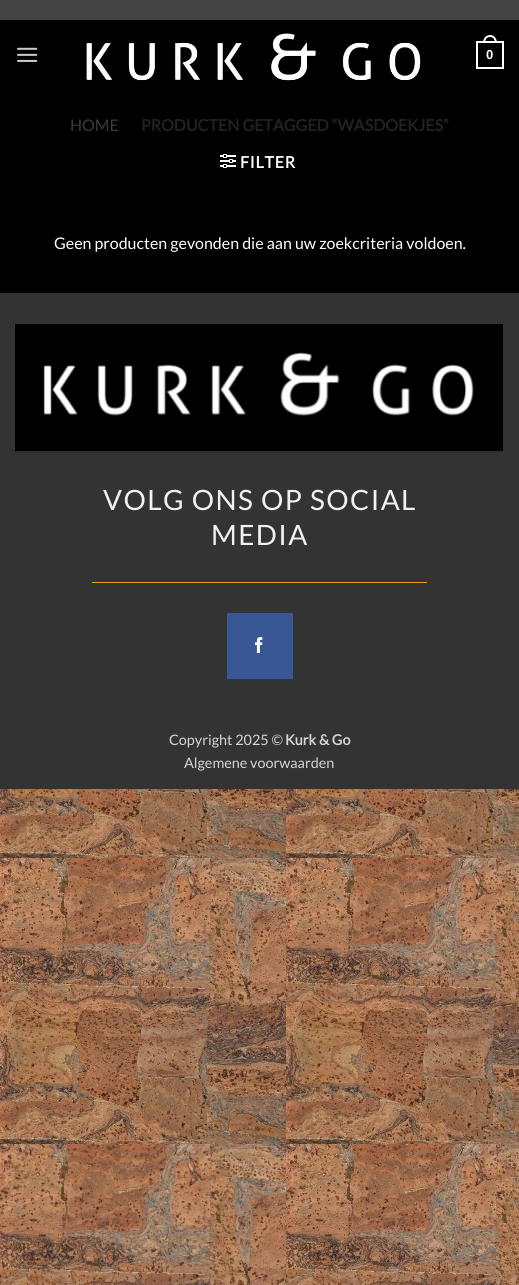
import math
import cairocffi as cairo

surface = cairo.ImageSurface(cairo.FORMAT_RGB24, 519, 1285)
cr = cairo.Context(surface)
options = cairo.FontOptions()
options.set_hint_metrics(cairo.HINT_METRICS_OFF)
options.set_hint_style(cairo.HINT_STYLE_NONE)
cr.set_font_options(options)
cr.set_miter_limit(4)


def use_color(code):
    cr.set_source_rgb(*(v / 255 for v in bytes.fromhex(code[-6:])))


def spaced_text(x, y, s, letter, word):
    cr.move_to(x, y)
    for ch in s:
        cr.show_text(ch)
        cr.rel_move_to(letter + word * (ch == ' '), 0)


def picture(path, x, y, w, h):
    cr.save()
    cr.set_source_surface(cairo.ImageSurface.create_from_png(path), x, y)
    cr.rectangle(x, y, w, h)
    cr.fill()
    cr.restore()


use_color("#ffffff")
cr.paint()
picture("img1.png", 0, 789, 519, 496)
use_color("#000000")
cr.rectangle(0, 20, 519, 273)
cr.fill()
use_color("#444444")
cr.rectangle(0, 0, 519, 20)
cr.fill()
picture("img2.png", 17, 47, 21, 15)
picture("img3.png", 86, 33, 335, 48)
cr.rectangle(477, 42, 26, 26)
use_color("#ffffff")
cr.stroke()
cr.set_fill_rule(cairo.FILL_RULE_EVEN_ODD)
cr.new_path()
cr.move_to(490, 35)
cr.curve_to(494.5, 35, 497, 39, 497, 43)
cr.line_to(483, 43)
cr.curve_to(483, 39, 485.5, 35, 490, 35)
cr.close_path()
cr.move_to(490, 37)
cr.curve_to(493.5, 37, 495, 40, 495, 43)
cr.line_to(485, 43)
cr.curve_to(485, 40, 486.5, 37, 490, 37)
cr.close_path()
cr.fill()
cr.select_font_face("Liberation Sans", cairo.FONT_SLANT_NORMAL, cairo.FONT_WEIGHT_BOLD)
cr.set_font_size(13)
cr.move_to(486, 59)
cr.show_text("0")
cr.select_font_face("Lato")
cr.set_font_size(16)
use_color("#3b3b3b")
cr.move_to(70, 131)
cr.show_text("HOME")
cr.select_font_face("Lato", cairo.FONT_SLANT_NORMAL, cairo.FONT_WEIGHT_BOLD)
use_color("#222222")
cr.move_to(141, 131)
cr.show_text("PRODUCTEN GETAGGED “WASDOEKJES”")
picture("img4.png", 220, 154, 16, 14)
use_color("#ffffff")
spaced_text(240, 168, "FILTER", 0.75, 0)
cr.select_font_face("Lato")
cr.move_to(54, 249)
cr.show_text("Geen producten gevonden die aan uw zoekcriteria voldoen.")
use_color("#333333")
cr.rectangle(0, 294, 519, 495)
cr.fill()
use_color("#303030")
cr.rectangle(0, 293, 519, 1)
cr.fill()
picture("img5.png", 15, 324, 488, 128)
use_color("#f39c12")
cr.rectangle(92, 582, 335, 1)
cr.fill()
cr.set_font_size(28)
use_color("#f1f1f1")
spaced_text(103, 510, "VOLG ONS OP SOCIAL", 1.4, 0)
spaced_text(211, 545, "MEDIA", 1.4, 0)
use_color("#3a5795")
cr.rectangle(227, 613, 66, 66)
cr.fill()
picture("img6.png", 254, 637, 9, 16)
cr.set_font_size(14.4)
use_color("#d6d6d6")
cr.move_to(169, 745)
cr.show_text("Copyright 2025 ©")
cr.select_font_face("Lato", cairo.FONT_SLANT_NORMAL, cairo.FONT_WEIGHT_BOLD)
cr.move_to(285, 745)
cr.show_text("Kurk & Go")
cr.select_font_face("Lato")
cr.move_to(184, 768)
cr.show_text("Algemene voorwaarden")
surface.write_to_png("result.png")
